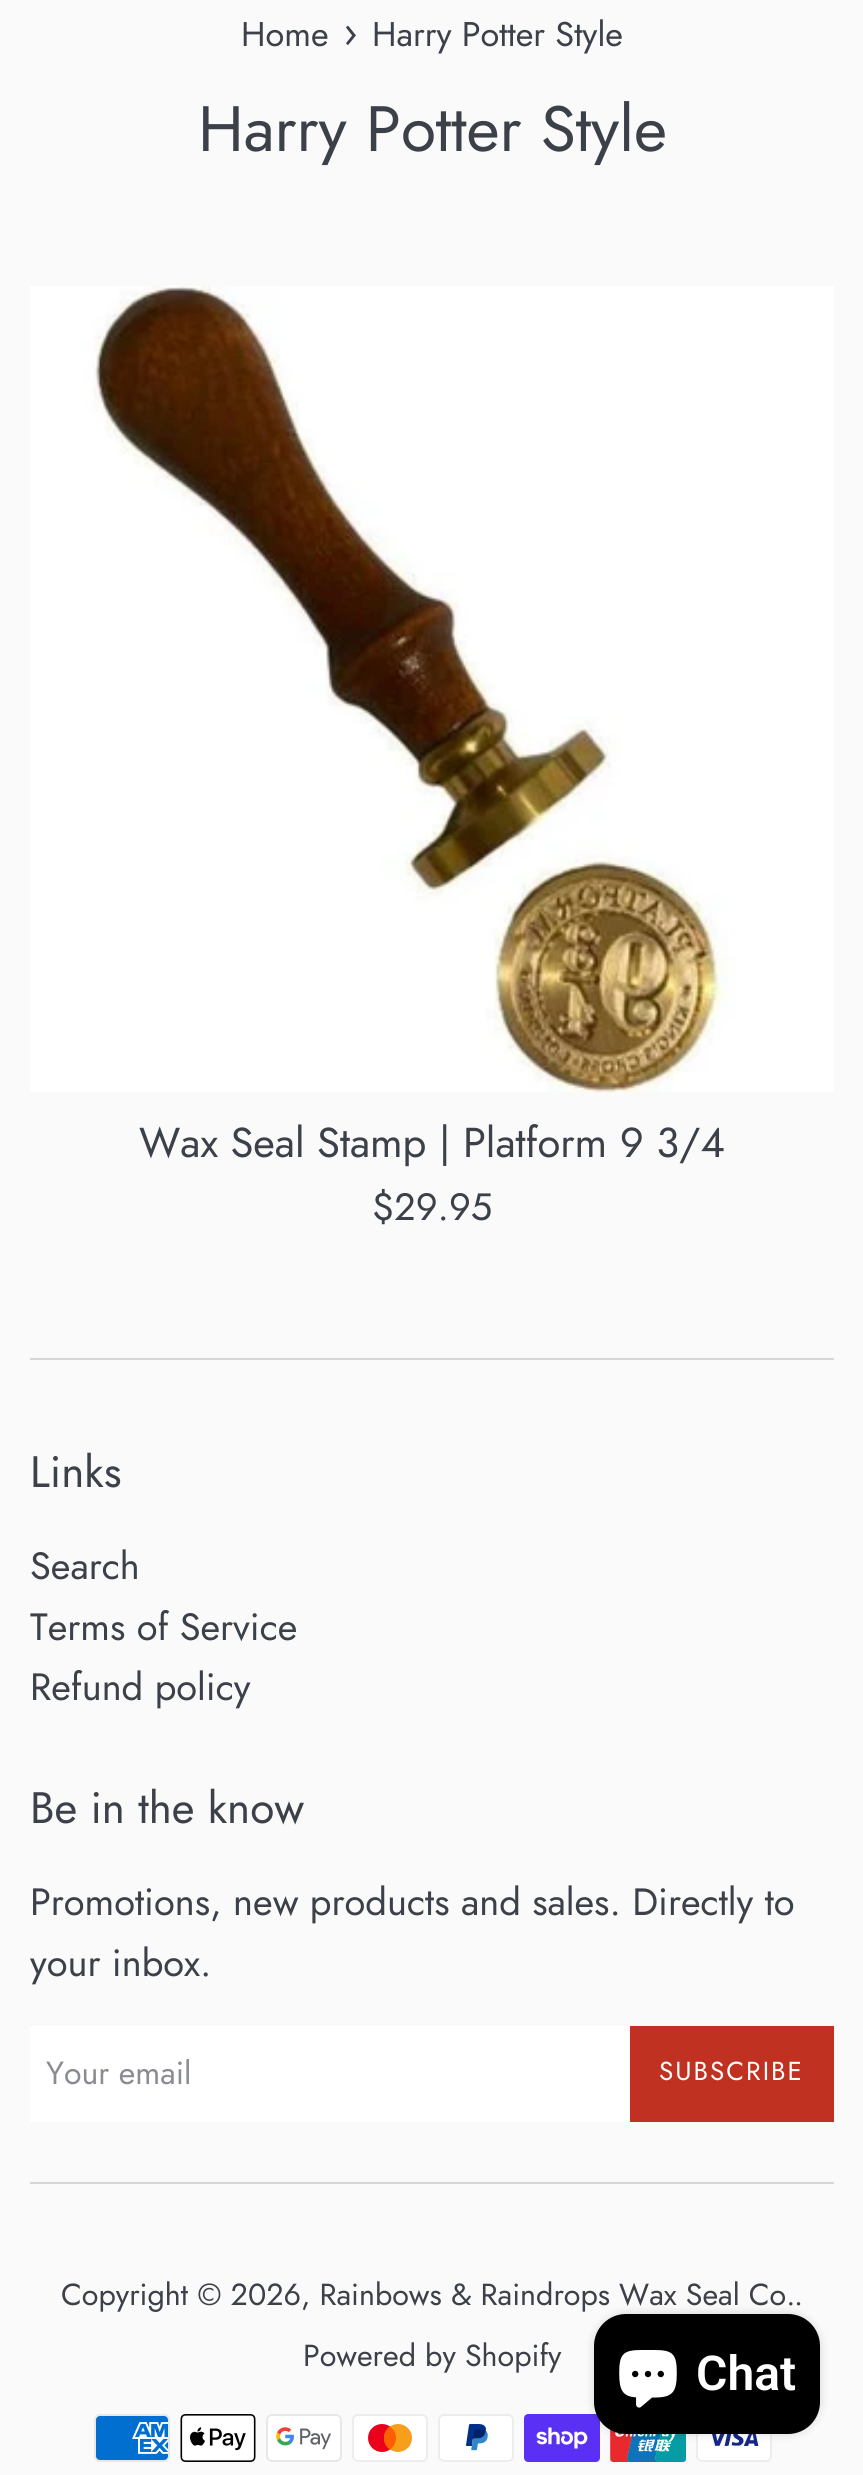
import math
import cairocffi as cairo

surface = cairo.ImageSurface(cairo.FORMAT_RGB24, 863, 2475)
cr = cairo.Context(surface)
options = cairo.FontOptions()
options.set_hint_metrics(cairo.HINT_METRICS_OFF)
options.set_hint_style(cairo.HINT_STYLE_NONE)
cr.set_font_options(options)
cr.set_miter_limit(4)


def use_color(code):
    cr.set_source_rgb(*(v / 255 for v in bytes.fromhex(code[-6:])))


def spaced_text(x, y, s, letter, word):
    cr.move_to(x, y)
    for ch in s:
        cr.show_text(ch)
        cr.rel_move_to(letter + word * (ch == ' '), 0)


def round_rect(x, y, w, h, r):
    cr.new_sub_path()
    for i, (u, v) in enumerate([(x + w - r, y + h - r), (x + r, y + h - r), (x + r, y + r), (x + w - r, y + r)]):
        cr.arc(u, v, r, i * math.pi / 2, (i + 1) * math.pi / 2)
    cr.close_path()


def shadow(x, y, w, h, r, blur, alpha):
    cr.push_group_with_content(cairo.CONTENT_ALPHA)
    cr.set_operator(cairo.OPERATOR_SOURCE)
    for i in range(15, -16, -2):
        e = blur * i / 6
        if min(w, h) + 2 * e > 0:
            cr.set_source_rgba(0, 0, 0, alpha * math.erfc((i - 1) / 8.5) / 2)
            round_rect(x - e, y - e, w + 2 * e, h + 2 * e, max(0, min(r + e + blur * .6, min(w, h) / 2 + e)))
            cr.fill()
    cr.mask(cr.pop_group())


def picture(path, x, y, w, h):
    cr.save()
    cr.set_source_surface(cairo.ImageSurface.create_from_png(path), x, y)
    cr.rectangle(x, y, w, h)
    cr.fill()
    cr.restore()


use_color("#fafafa")
cr.paint()
cr.select_font_face("Jost")
cr.set_font_size(34.25)
use_color("#3c4049")
cr.move_to(241, 46)
cr.show_text("Home")
cr.set_font_size(41.75)
cr.move_to(343, 46)
cr.show_text("›")
cr.set_font_size(34.25)
cr.move_to(372, 46)
cr.show_text("Harry Potter Style")
cr.set_font_size(64)
cr.move_to(198, 151)
cr.show_text("Harry Potter Style")
picture("img1.png", 30, 286, 804, 806)
cr.set_font_size(41.75)
cr.move_to(139, 1157)
cr.show_text("Wax Seal Stamp | Platform 9 3/4")
cr.set_font_size(38)
cr.move_to(372, 1220)
cr.show_text("$29.95")
use_color("#d7d8d2")
cr.rectangle(30, 1358, 804, 2)
cr.fill()
cr.set_font_size(44)
use_color("#3c4049")
cr.move_to(30, 1487)
cr.show_text("Links")
cr.set_font_size(38)
cr.move_to(30, 1579)
cr.show_text("Search")
cr.move_to(30, 1640)
cr.show_text("Terms of Service")
cr.move_to(30, 1700)
cr.show_text("Refund policy")
cr.set_font_size(44)
cr.move_to(30, 1823)
cr.show_text("Be in the know")
cr.set_font_size(38)
cr.move_to(30, 1915)
cr.show_text("Promotions, new products and sales. Directly to")
cr.move_to(30, 1976)
cr.show_text("your inbox.")
use_color("#ffffff")
cr.rectangle(30, 2026, 600, 96)
cr.fill()
cr.set_font_size(32)
use_color("#8a8c92")
cr.move_to(46, 2084)
cr.show_text("Your email")
use_color("#c13121")
cr.rectangle(630, 2026, 204, 96)
cr.fill()
cr.set_font_size(26)
use_color("#ffffff")
spaced_text(659, 2080, "SUBSCRIBE", 2, 0)
use_color("#d7d8d2")
cr.rectangle(30, 2182, 804, 2)
cr.fill()
cr.set_font_size(30.4)
use_color("#3c4049")
cr.move_to(61, 2305)
cr.show_text("Copyright © 2026, Rainbows & Raindrops Wax Seal Co.")
cr.move_to(794, 2305)
cr.show_text(".")
cr.move_to(303, 2366)
cr.show_text("Powered by Shopify")
picture("img2.png", 94, 2414, 76, 48)
picture("img3.png", 180, 2414, 76, 48)
picture("img4.png", 266, 2414, 76, 48)
picture("img5.png", 352, 2414, 76, 48)
picture("img6.png", 438, 2414, 76, 48)
picture("img7.png", 524, 2414, 76, 48)
picture("img8.png", 610, 2429, 76, 33)
picture("img9.png", 696, 2434, 76, 28)
use_color("#000000")
shadow(594, 2314, 226, 120, 32, 5, 0.15)
use_color("#000000")
round_rect(594, 2314, 226, 120, 32)
cr.fill()
picture("img10.png", 619, 2350, 58, 58)
cr.select_font_face("Roboto SemiBold")
cr.set_font_size(48)
use_color("#ffffff")
cr.move_to(696, 2390)
cr.show_text("Chat")
surface.write_to_png("result.png")
